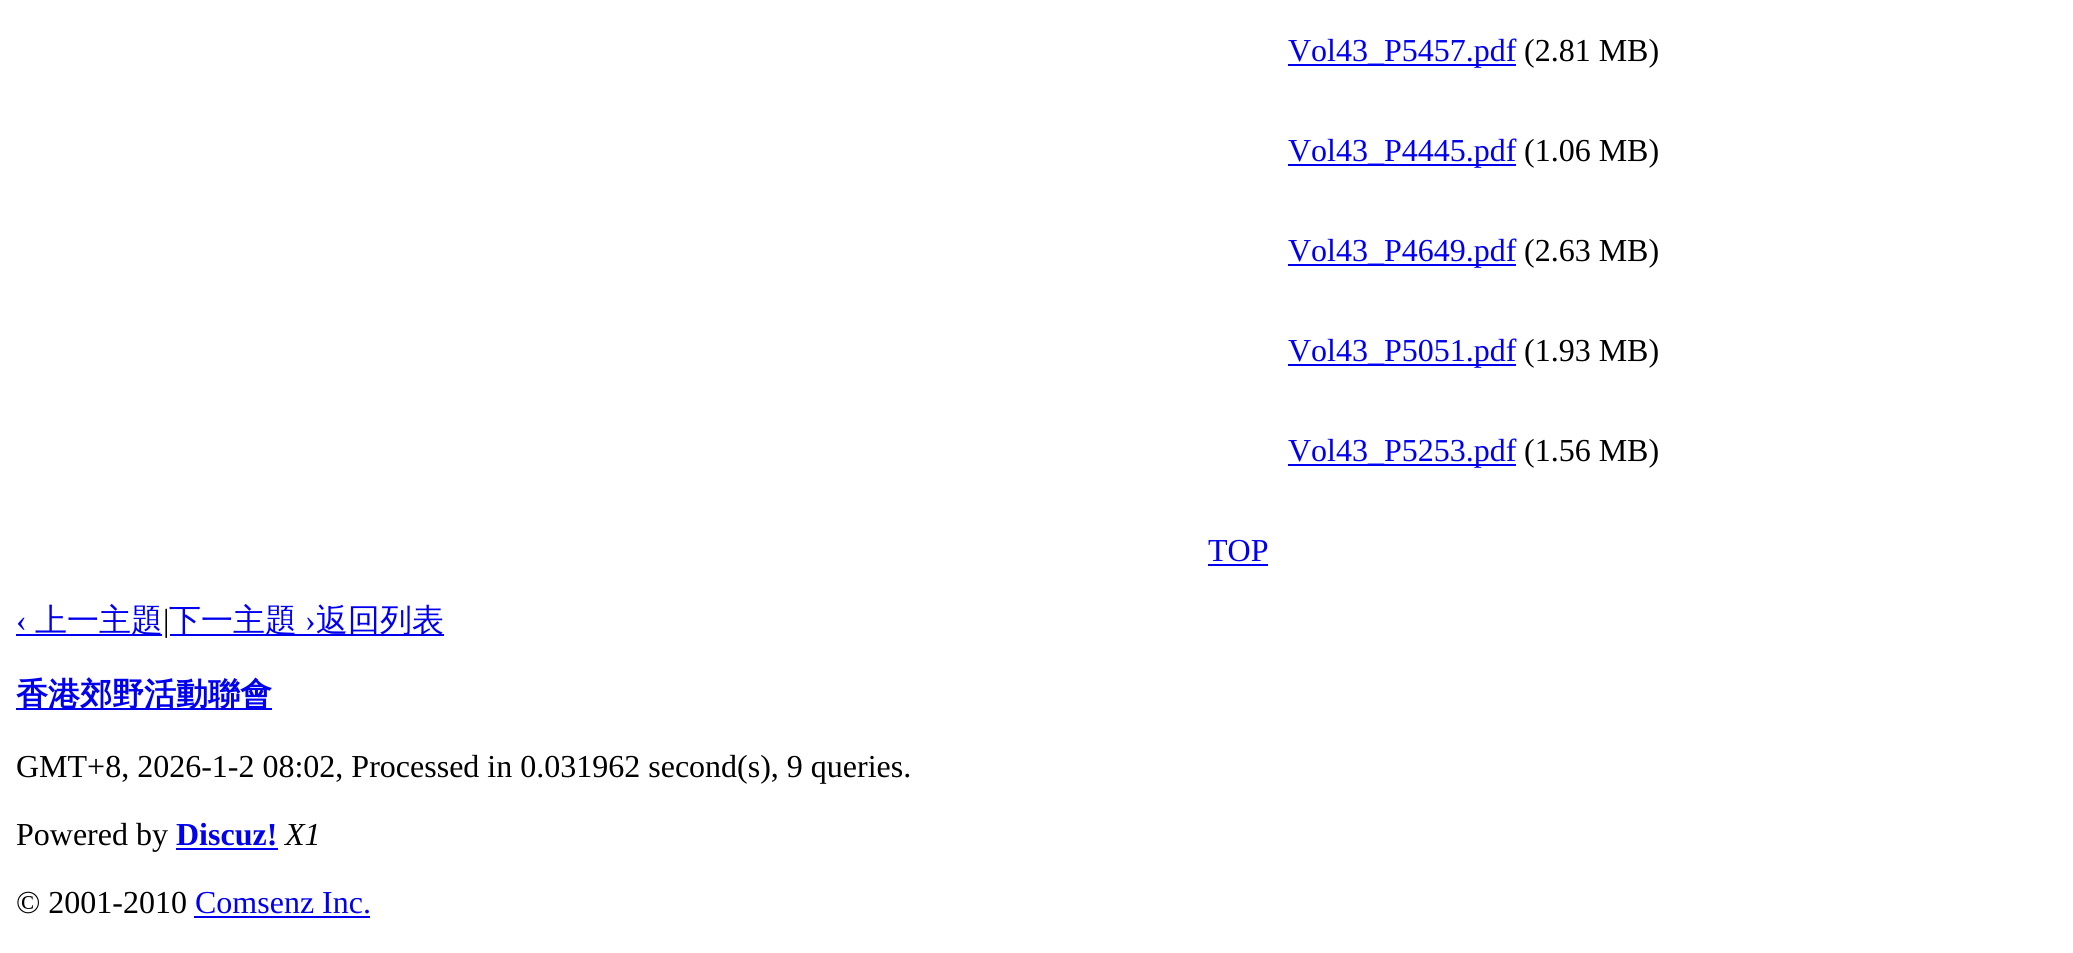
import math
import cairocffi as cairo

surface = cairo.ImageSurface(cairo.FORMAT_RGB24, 2073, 953)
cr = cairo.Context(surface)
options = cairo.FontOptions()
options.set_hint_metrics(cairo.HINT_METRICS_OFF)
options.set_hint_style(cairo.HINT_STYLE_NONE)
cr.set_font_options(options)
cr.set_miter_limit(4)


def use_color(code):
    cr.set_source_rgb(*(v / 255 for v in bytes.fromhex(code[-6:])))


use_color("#ffffff")
cr.paint()
use_color("#0000ee")
cr.rectangle(1288, 64, 228, 2)
cr.fill()
cr.select_font_face("Liberation Serif")
cr.set_font_size(32)
cr.move_to(1288, 61)
cr.show_text("Vol43_P5457.pdf")
use_color("#000000")
cr.move_to(1524, 61)
cr.show_text("(2.81 MB)")
use_color("#0000ee")
cr.rectangle(1288, 164, 228, 2)
cr.fill()
cr.move_to(1288, 161)
cr.show_text("Vol43_P4445.pdf")
use_color("#000000")
cr.move_to(1524, 161)
cr.show_text("(1.06 MB)")
use_color("#0000ee")
cr.rectangle(1288, 264, 228, 2)
cr.fill()
cr.move_to(1288, 261)
cr.show_text("Vol43_P4649.pdf")
use_color("#000000")
cr.move_to(1524, 261)
cr.show_text("(2.63 MB)")
use_color("#0000ee")
cr.rectangle(1288, 364, 228, 2)
cr.fill()
cr.move_to(1288, 361)
cr.show_text("Vol43_P5051.pdf")
use_color("#000000")
cr.move_to(1524, 361)
cr.show_text("(1.93 MB)")
use_color("#0000ee")
cr.rectangle(1288, 464, 228, 2)
cr.fill()
cr.move_to(1288, 461)
cr.show_text("Vol43_P5253.pdf")
use_color("#000000")
cr.move_to(1524, 461)
cr.show_text("(1.56 MB)")
use_color("#0000ee")
cr.move_to(1208, 561)
cr.show_text("TOP")
cr.rectangle(1208, 564, 60, 2)
cr.fill()
cr.move_to(16, 631)
cr.show_text("‹")
cr.rectangle(16, 634, 146, 2)
cr.fill()
cr.select_font_face("WenQuanYi Zen Hei Medium")
cr.move_to(35, 631)
cr.show_text("上一主題")
cr.select_font_face("Liberation Serif")
use_color("#000000")
cr.move_to(163, 631)
cr.show_text("|")
use_color("#0000ee")
cr.rectangle(170, 634, 274, 2)
cr.fill()
cr.select_font_face("WenQuanYi Zen Hei Medium")
cr.move_to(169, 631)
cr.show_text("下一主題")
cr.select_font_face("Liberation Serif")
cr.move_to(305, 631)
cr.show_text("›")
cr.select_font_face("WenQuanYi Zen Hei Medium")
cr.move_to(316, 631)
cr.show_text("返回列表")
cr.rectangle(16, 708, 256, 2)
cr.fill()
cr.select_font_face("WenQuanYi Zen Hei", cairo.FONT_SLANT_NORMAL, cairo.FONT_WEIGHT_BOLD)
cr.move_to(16, 705)
cr.show_text("香港郊野活動聯會")
cr.select_font_face("Liberation Serif")
use_color("#000000")
cr.move_to(16, 777)
cr.show_text("GMT+8, 2026-1-2 08:02, Processed in 0.031962 second(s), 9 queries.")
cr.move_to(16, 845)
cr.show_text("Powered by")
cr.select_font_face("Liberation Serif", cairo.FONT_SLANT_NORMAL, cairo.FONT_WEIGHT_BOLD)
use_color("#0000ee")
cr.move_to(176, 845)
cr.show_text("Discuz!")
cr.rectangle(176, 848, 102, 2)
cr.fill()
cr.select_font_face("Liberation Serif", cairo.FONT_SLANT_ITALIC)
use_color("#000000")
cr.move_to(285, 845)
cr.show_text("X1")
cr.select_font_face("Liberation Serif")
cr.move_to(16, 913)
cr.show_text("© 2001-2010")
use_color("#0000ee")
cr.move_to(195, 913)
cr.show_text("Comsenz Inc.")
cr.rectangle(194, 916, 176, 2)
cr.fill()
surface.write_to_png("result.png")
